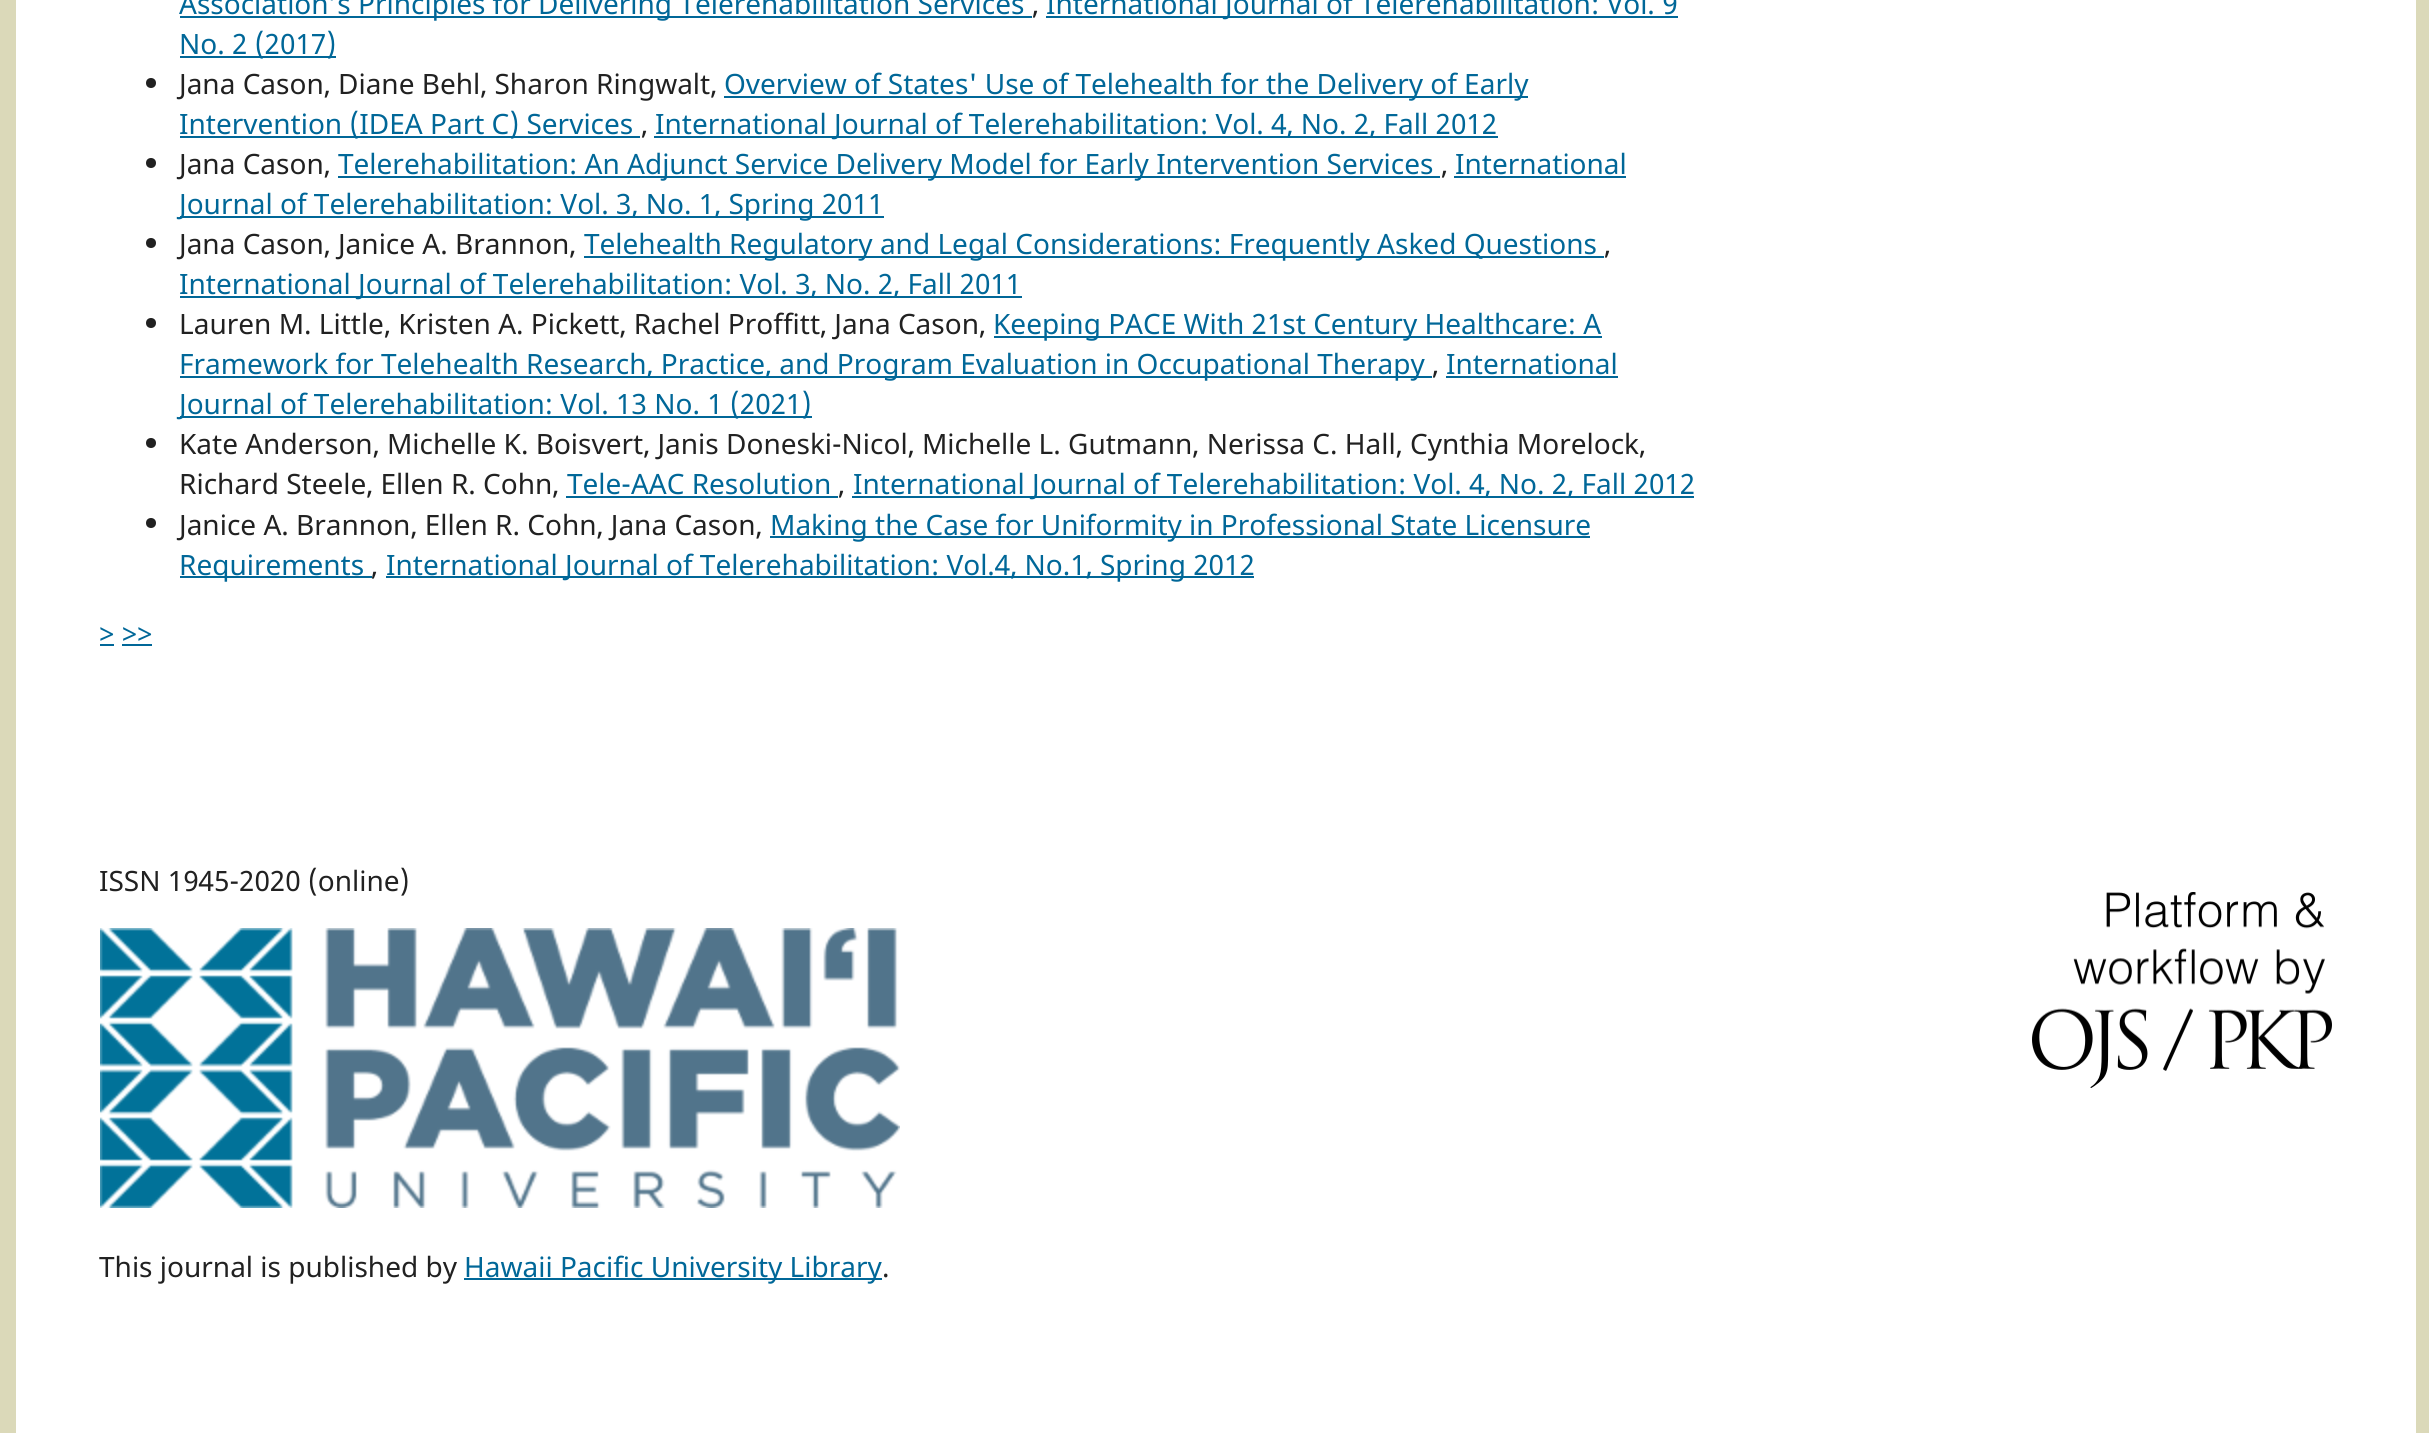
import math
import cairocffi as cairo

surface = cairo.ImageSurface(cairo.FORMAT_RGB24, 2429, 1433)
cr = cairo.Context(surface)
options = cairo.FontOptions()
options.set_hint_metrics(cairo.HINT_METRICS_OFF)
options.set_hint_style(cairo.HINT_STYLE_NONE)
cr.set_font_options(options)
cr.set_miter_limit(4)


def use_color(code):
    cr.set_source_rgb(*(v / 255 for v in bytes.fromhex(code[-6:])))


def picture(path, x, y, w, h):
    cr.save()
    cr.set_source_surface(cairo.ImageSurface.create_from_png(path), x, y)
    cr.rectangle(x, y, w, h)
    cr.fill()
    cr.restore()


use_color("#dbd9b9")
cr.paint()
use_color("#ffffff")
cr.rectangle(16, 0, 2400, 1433)
cr.fill()
use_color("#006798")
cr.rectangle(180, 16, 852, 2)
cr.fill()
cr.select_font_face("Noto Sans")
cr.set_font_size(28)
cr.move_to(179, 14)
cr.show_text("Association’s Principles for Delivering Telerehabilitation Services")
use_color("#212121")
cr.move_to(1032, 14)
cr.show_text(",")
use_color("#006798")
cr.rectangle(1046, 16, 632, 2)
cr.fill()
cr.move_to(1046, 14)
cr.show_text("International Journal of Telerehabilitation: Vol. 9")
cr.rectangle(180, 56, 156, 2)
cr.fill()
cr.move_to(179, 54)
cr.show_text("No. 2 (2017)")
use_color("#212121")
cr.new_path()
cr.arc(151, 83, 5, 0, 2 * math.pi)
cr.fill()
cr.move_to(179, 94)
cr.show_text("Jana Cason, Diane Behl, Sharon Ringwalt,")
use_color("#006798")
cr.rectangle(724, 96, 804, 2)
cr.fill()
cr.move_to(724, 94)
cr.show_text("Overview of States' Use of Telehealth for the Delivery of Early")
cr.rectangle(180, 136, 460, 2)
cr.fill()
cr.move_to(179, 134)
cr.show_text("Intervention (IDEA Part C) Services")
use_color("#212121")
cr.move_to(641, 134)
cr.show_text(",")
use_color("#006798")
cr.rectangle(654, 136, 844, 2)
cr.fill()
cr.move_to(655, 134)
cr.show_text("International Journal of Telerehabilitation: Vol. 4, No. 2, Fall 2012")
use_color("#212121")
cr.new_path()
cr.arc(151, 163, 5, 0, 2 * math.pi)
cr.fill()
cr.move_to(179, 174)
cr.show_text("Jana Cason,")
use_color("#006798")
cr.rectangle(338, 176, 1102, 2)
cr.fill()
cr.move_to(338, 174)
cr.show_text("Telerehabilitation: An Adjunct Service Delivery Model for Early Intervention Services")
cr.move_to(1455, 174)
cr.show_text("International")
cr.rectangle(1454, 176, 172, 2)
cr.fill()
use_color("#212121")
cr.move_to(1441, 174)
cr.show_text(",")
use_color("#006798")
cr.rectangle(180, 216, 704, 2)
cr.fill()
cr.move_to(179, 214)
cr.show_text("Journal of Telerehabilitation: Vol. 3, No. 1, Spring 2011")
use_color("#212121")
cr.new_path()
cr.arc(151, 243, 5, 0, 2 * math.pi)
cr.fill()
cr.move_to(179, 254)
cr.show_text("Jana Cason, Janice A. Brannon,")
use_color("#006798")
cr.rectangle(584, 256, 1020, 2)
cr.fill()
cr.move_to(584, 254)
cr.show_text("Telehealth Regulatory and Legal Considerations: Frequently Asked Questions")
use_color("#212121")
cr.move_to(1604, 254)
cr.show_text(",")
use_color("#006798")
cr.rectangle(180, 296, 842, 2)
cr.fill()
cr.move_to(179, 294)
cr.show_text("International Journal of Telerehabilitation: Vol. 3, No. 2, Fall 2011")
use_color("#212121")
cr.new_path()
cr.arc(151, 323, 5, 0, 2 * math.pi)
cr.fill()
cr.move_to(179, 334)
cr.show_text("Lauren M. Little, Kristen A. Pickett, Rachel Proffitt, Jana Cason,")
use_color("#006798")
cr.rectangle(994, 336, 608, 2)
cr.fill()
cr.move_to(993, 334)
cr.show_text("Keeping PACE With 21st Century Healthcare: A")
cr.rectangle(180, 376, 1252, 2)
cr.fill()
cr.move_to(179, 374)
cr.show_text("Framework for Telehealth Research, Practice, and Program Evaluation in Occupational Therapy")
use_color("#212121")
cr.move_to(1432, 374)
cr.show_text(",")
use_color("#006798")
cr.move_to(1446, 374)
cr.show_text("International")
cr.rectangle(1446, 376, 172, 2)
cr.fill()
cr.rectangle(180, 416, 632, 2)
cr.fill()
cr.move_to(179, 414)
cr.show_text("Journal of Telerehabilitation: Vol. 13 No. 1 (2021)")
use_color("#212121")
cr.new_path()
cr.arc(151, 443, 5, 0, 2 * math.pi)
cr.fill()
cr.move_to(179, 454)
cr.show_text("Kate Anderson, Michelle K. Boisvert, Janis Doneski-Nicol, Michelle L. Gutmann, Nerissa C. Hall, Cynthia Morelock,")
cr.move_to(179, 494)
cr.show_text("Richard Steele, Ellen R. Cohn,")
use_color("#006798")
cr.move_to(567, 494)
cr.show_text("Tele-AAC Resolution")
cr.rectangle(566, 496, 272, 2)
cr.fill()
use_color("#212121")
cr.move_to(838, 494)
cr.show_text(",")
use_color("#006798")
cr.rectangle(852, 496, 842, 2)
cr.fill()
cr.move_to(853, 494)
cr.show_text("International Journal of Telerehabilitation: Vol. 4, No. 2, Fall 2012")
use_color("#212121")
cr.new_path()
cr.arc(151, 523, 5, 0, 2 * math.pi)
cr.fill()
cr.move_to(179, 535)
cr.show_text("Janice A. Brannon, Ellen R. Cohn, Jana Cason,")
use_color("#006798")
cr.rectangle(770, 536, 820, 2)
cr.fill()
cr.move_to(770, 535)
cr.show_text("Making the Case for Uniformity in Professional State Licensure")
cr.rectangle(180, 576, 192, 2)
cr.fill()
cr.move_to(179, 575)
cr.show_text("Requirements")
use_color("#212121")
cr.move_to(371, 575)
cr.show_text(",")
use_color("#006798")
cr.rectangle(386, 576, 868, 2)
cr.fill()
cr.move_to(386, 575)
cr.show_text("International Journal of Telerehabilitation: Vol.4, No.1, Spring 2012")
cr.move_to(99, 643)
cr.show_text("> >>")
cr.rectangle(100, 644, 14, 2)
cr.fill()
cr.rectangle(122, 644, 30, 2)
cr.fill()
use_color("#212121")
cr.move_to(99, 891)
cr.show_text("ISSN 1945-2020 (online)")
picture("img1.png", 100, 928, 800, 280)
cr.move_to(99, 1277)
cr.show_text("This journal is published by")
use_color("#006798")
cr.rectangle(464, 1278, 418, 2)
cr.fill()
cr.move_to(464, 1277)
cr.show_text("Hawaii Pacific University Library")
use_color("#212121")
cr.move_to(882, 1277)
cr.show_text(".")
picture("img2.png", 2032, 892, 300, 196)
surface.write_to_png("result.png")
